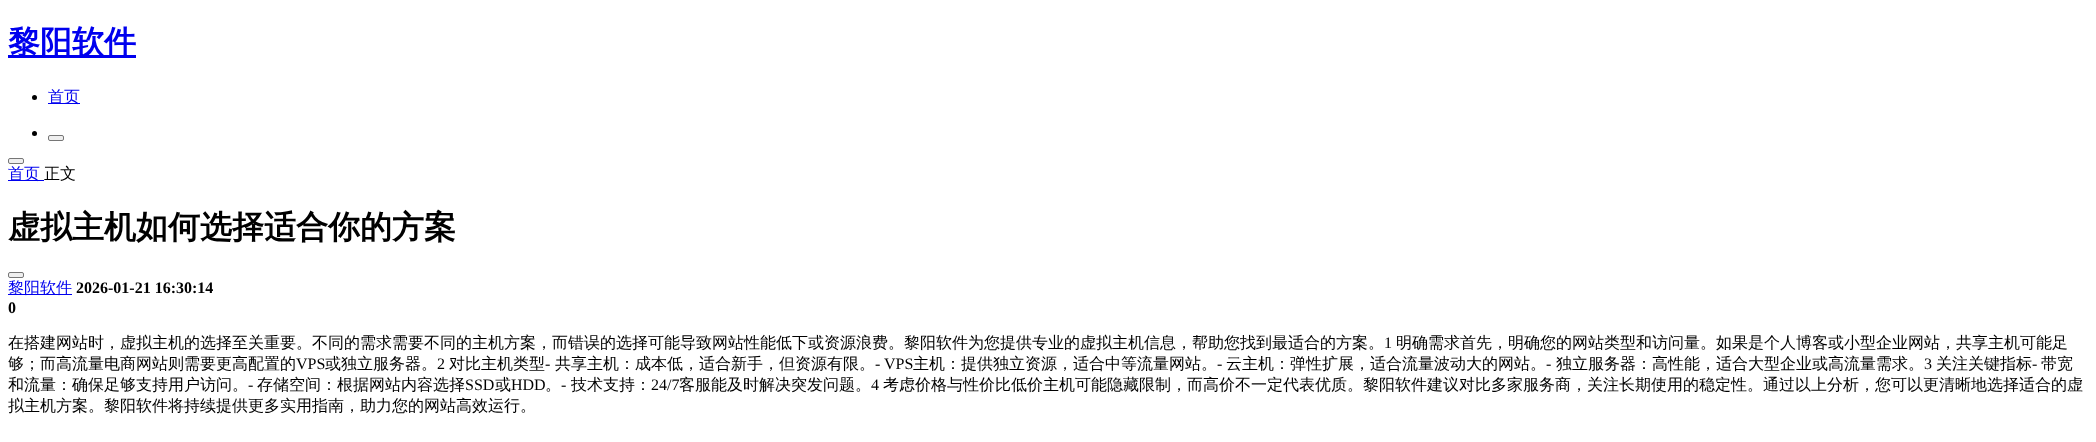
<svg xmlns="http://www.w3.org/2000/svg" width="2096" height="442">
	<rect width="100%" height="100%" fill="#FFFFFF" />
	<rect x="8" y="55" width="128" height="3" fill="#0000EE" />
	<text x="8" y="53" font-family="WenQuanYi Zen Hei" font-size="32" font-weight="700" fill="#0000EE">黎阳软件</text>
	<circle cx="34.5" cy="97.5" r="2.5" fill="#000000" />
	<rect x="48" y="103" width="32" height="1" fill="#0000EE" />
	<text x="48" y="102" font-family="WenQuanYi Zen Hei" font-size="16" font-weight="500" fill="#0000EE">首页</text>
	<circle cx="34.5" cy="133.5" r="2.5" fill="#000000" />
	<rect x="48.5" y="135.5" width="15" height="5" rx="1.5" fill="#EFEFEF" stroke="#767676" />
	<rect x="8.5" y="158.5" width="15" height="5" rx="1.5" fill="#EFEFEF" stroke="#767676" />
	<rect x="8" y="180" width="36" height="1" fill="#0000EE" />
	<text x="8" y="179" font-family="WenQuanYi Zen Hei" font-size="16" font-weight="500" fill="#0000EE">首页</text>
	<text x="44" y="179" font-family="WenQuanYi Zen Hei" font-size="16" font-weight="500" fill="#000000">正文</text>
	<text x="8" y="238" font-family="WenQuanYi Zen Hei" font-size="32" font-weight="700" fill="#000000">虚拟主机如何选择适合你的方案</text>
	<rect x="8.5" y="272.5" width="15" height="5" rx="1.5" fill="#EFEFEF" stroke="#767676" />
	<rect x="8" y="294" width="64" height="1" fill="#0000EE" />
	<text x="8" y="293" font-family="WenQuanYi Zen Hei" font-size="16" font-weight="500" fill="#0000EE">黎阳软件</text>
	<g font-family="Liberation Serif" font-size="16" font-weight="700" fill="#000000">
		<text x="76" y="293">2026-01-21 16:30:14</text>
		<text x="8" y="313">0</text>
	</g>
	<text x="8" y="348" font-family="WenQuanYi Zen Hei" font-size="16" font-weight="500" fill="#000000">在搭建网站时，虚拟主机的选择至关重要。不同的需求需要不同的主机方案，而错误的选择可能导致网站性能低下或资源浪费。黎阳软件为您提供专业的虚拟主机信息，帮助您找到最适合的方案。</text>
	<text x="1384" y="348" font-family="Liberation Serif" font-size="16" fill="#000000">1</text>
	<g font-family="WenQuanYi Zen Hei" font-size="16" font-weight="500" fill="#000000">
		<text x="1396" y="348">明确需求首先，明确您的网站类型和访问量。如果是个人博客或小型企业网站，共享主机可能足</text>
		<text x="8" y="369">够；而高流量电商网站则需要更高配置的</text>
	</g>
	<text x="296" y="369" font-family="Liberation Serif" font-size="16" fill="#000000">VPS</text>
	<text x="325" y="369" font-family="WenQuanYi Zen Hei" font-size="16" font-weight="500" fill="#000000">或独立服务器。</text>
	<text x="437" y="369" font-family="Liberation Serif" font-size="16" fill="#000000">2</text>
	<text x="449" y="369" font-family="WenQuanYi Zen Hei" font-size="16" font-weight="500" fill="#000000">对比主机类型</text>
	<text x="545" y="369" font-family="Liberation Serif" font-size="16" fill="#000000">-</text>
	<text x="555" y="369" font-family="WenQuanYi Zen Hei" font-size="16" font-weight="500" fill="#000000">共享主机：成本低，适合新手，但资源有限。</text>
	<text x="875" y="369" font-family="Liberation Serif" font-size="16" fill="#000000">- VPS</text>
	<text x="913" y="369" font-family="WenQuanYi Zen Hei" font-size="16" font-weight="500" fill="#000000">主机：提供独立资源，适合中等流量网站。</text>
	<text x="1217" y="369" font-family="Liberation Serif" font-size="16" fill="#000000">-</text>
	<text x="1226" y="369" font-family="WenQuanYi Zen Hei" font-size="16" font-weight="500" fill="#000000">云主机：弹性扩展，适合流量波动大的网站。</text>
	<text x="1546" y="369" font-family="Liberation Serif" font-size="16" fill="#000000">-</text>
	<text x="1556" y="369" font-family="WenQuanYi Zen Hei" font-size="16" font-weight="500" fill="#000000">独立服务器：高性能，适合大型企业或高流量需求。</text>
	<text x="1924" y="369" font-family="Liberation Serif" font-size="16" fill="#000000">3</text>
	<text x="1936" y="369" font-family="WenQuanYi Zen Hei" font-size="16" font-weight="500" fill="#000000">关注关键指标</text>
	<text x="2032" y="369" font-family="Liberation Serif" font-size="16" fill="#000000">-</text>
	<g font-family="WenQuanYi Zen Hei" font-size="16" font-weight="500" fill="#000000">
		<text x="2041" y="369">带宽</text>
		<text x="8" y="390">和流量：确保足够支持用户访问。</text>
	</g>
	<text x="248" y="390" font-family="Liberation Serif" font-size="16" fill="#000000">-</text>
	<text x="257" y="390" font-family="WenQuanYi Zen Hei" font-size="16" font-weight="500" fill="#000000">存储空间：根据网站内容选择</text>
	<text x="465" y="390" font-family="Liberation Serif" font-size="16" fill="#000000">SSD</text>
	<text x="495" y="390" font-family="WenQuanYi Zen Hei" font-size="16" font-weight="500" fill="#000000">或</text>
	<g font-family="Liberation Serif" font-size="16" fill="#000000">
		<text x="511" y="390">HDD</text>
		<text x="561" y="390">-</text>
	</g>
	<text x="571" y="390" font-family="WenQuanYi Zen Hei" font-size="16" font-weight="500" fill="#000000">技术支持：</text>
	<text x="651" y="390" font-family="Liberation Serif" font-size="16" fill="#000000">24/7</text>
	<text x="679" y="390" font-family="WenQuanYi Zen Hei" font-size="16" font-weight="500" fill="#000000">客服能及时解决突发问题。</text>
	<text x="871" y="390" font-family="Liberation Serif" font-size="16" fill="#000000">4</text>
	<g font-family="WenQuanYi Zen Hei" font-size="16" font-weight="500" fill="#000000">
		<text x="883" y="390">考虑价格与性价比低价主机可能隐藏限制，而高价不一定代表优质。黎阳软件建议对比多家服务商，关注长期使用的稳定性。通过以上分析，您可以更清晰地选择适合的虚</text>
		<text x="545" y="390">。</text>
		<text x="8" y="411">拟主机方案。黎阳软件将持续提供更多实用指南，助力您的网站高效运行。</text>
	</g>
</svg>
